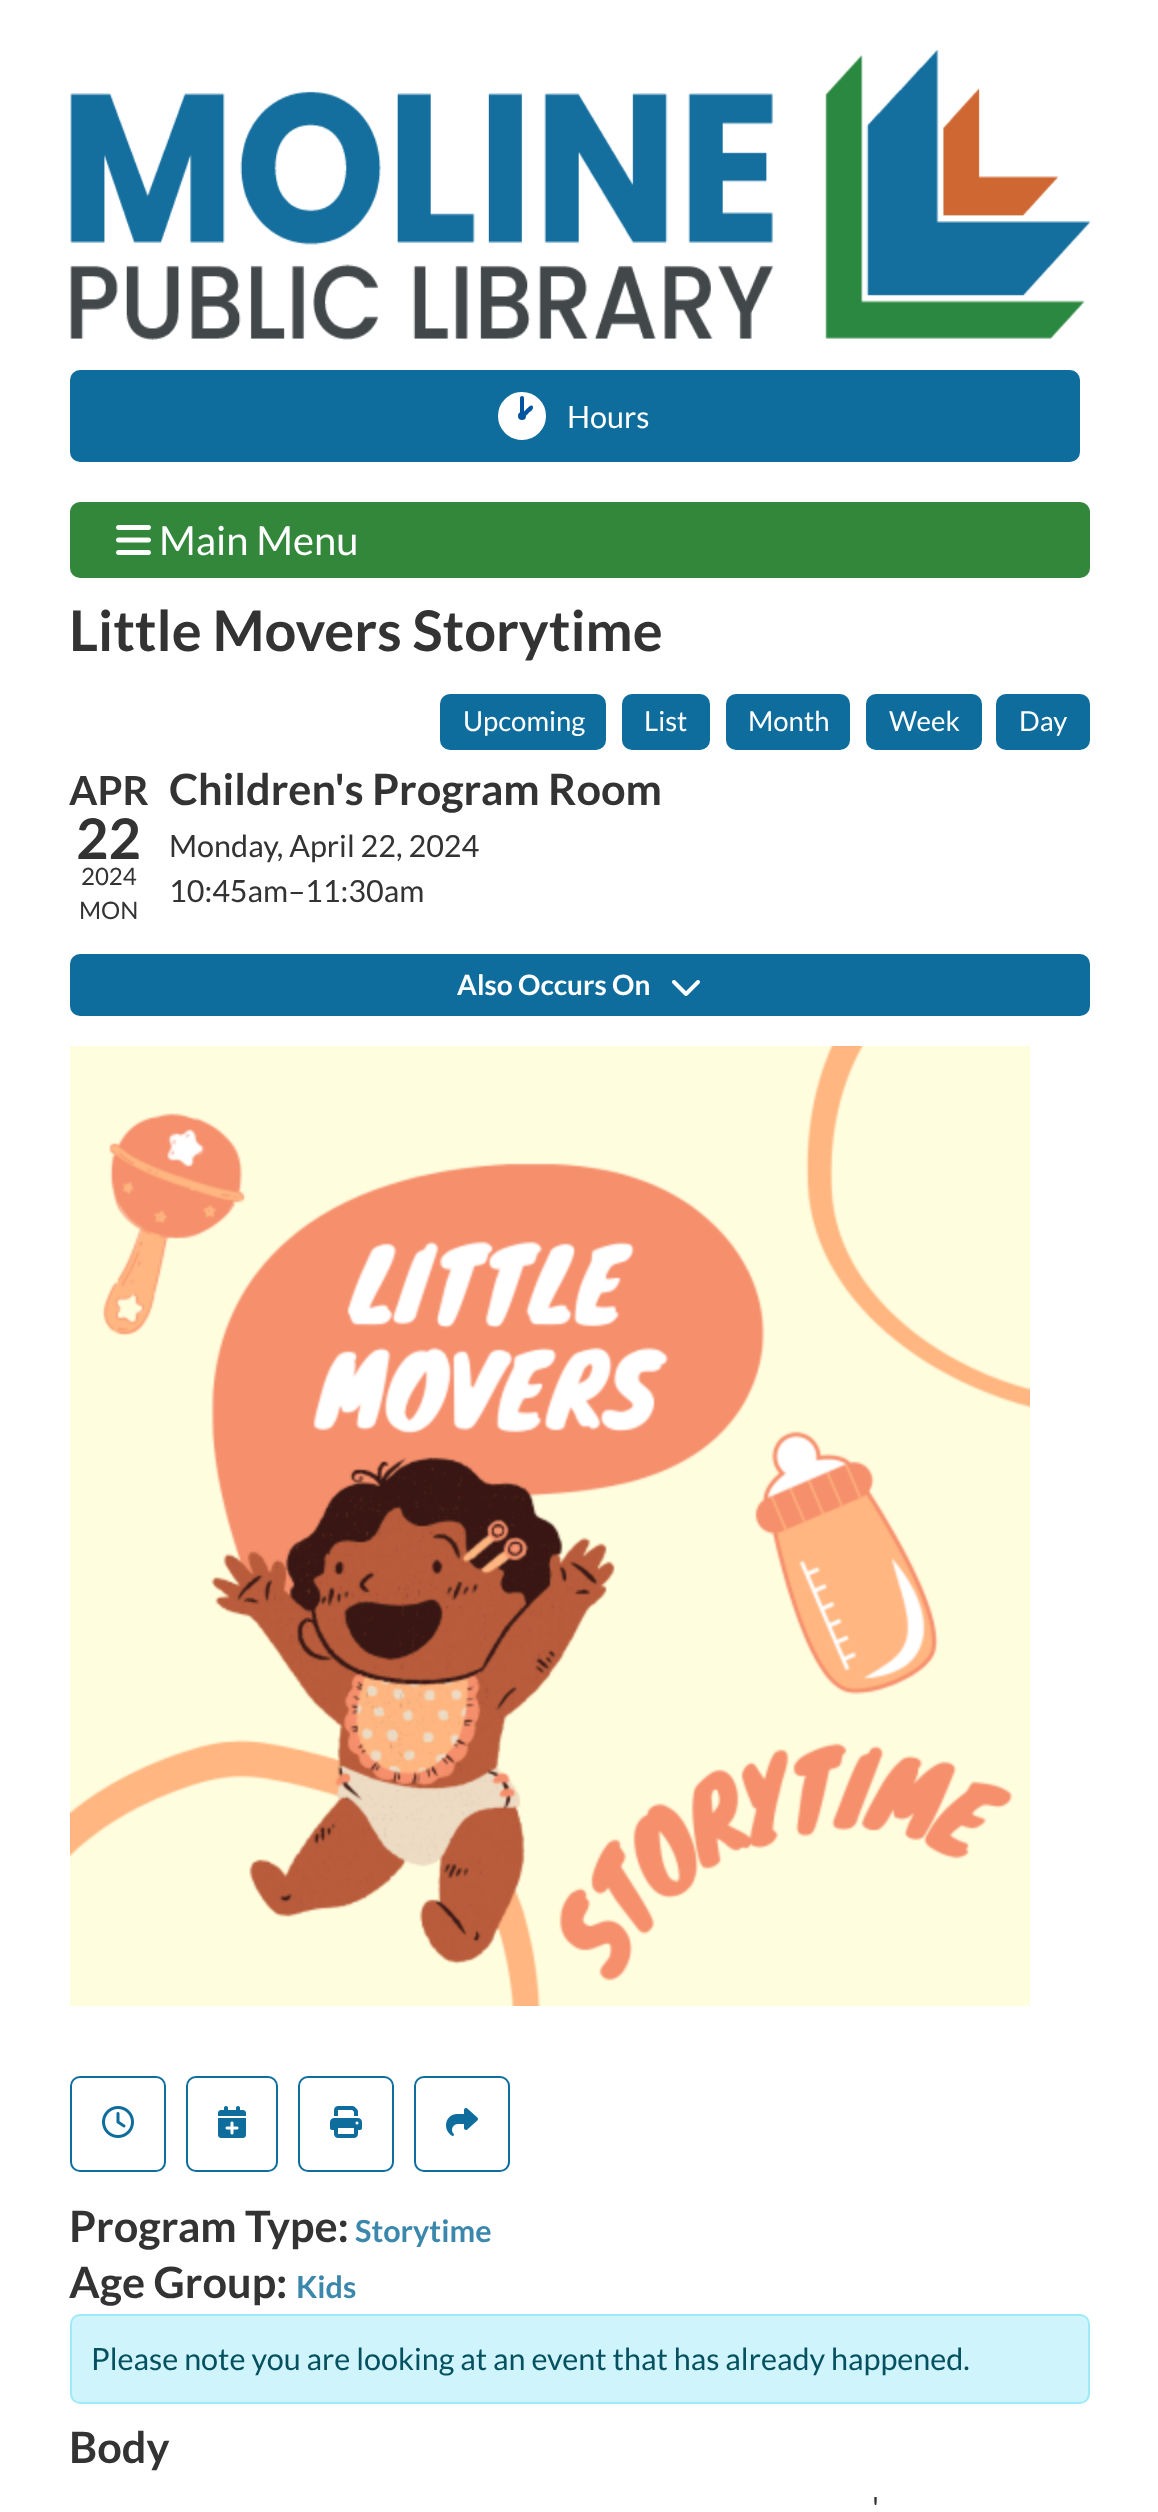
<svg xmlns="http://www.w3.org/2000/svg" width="1158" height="2512">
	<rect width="100%" height="100%" fill="#FFFFFF" />
	<image x="70" y="50" width="1020" height="290" href="assets/img1.png" />
	<rect x="71" y="371" width="1008" height="90" rx="9" fill="#0E6D9C" stroke="#0E6D9C" stroke-width="2" />
	<circle cx="522" cy="416" r="14" fill="#00549F" stroke="#FFFFFF" stroke-width="20" />
	<rect x="520" y="396" width="4" height="20" rx="2" fill="#00549F" />
	<path d="M532.5 406C534.5 408.5 530.5 411.5 529 412.5C528 413.5 525 418 522.5 416C520.5 414 525 411 526 409.5C527.5 408.5 530.5 404 532.5 406Z" fill="#00549F" />
	<text x="567" y="428" font-family="Lato" font-size="30.55" fill="#FFFFFF">Hours</text>
	<rect x="70" y="502" width="1020" height="76" rx="10" fill="#33873B" />
	<image x="116" y="525" width="35" height="30" href="assets/img2.png" />
	<text x="159" y="555" font-family="Lato" font-size="40" fill="#FFFFFF">Main Menu</text>
	<text x="69" y="651" font-family="Lato" font-size="56" font-weight="700" fill="#333333">Little Movers Storytime</text>
	<rect x="441" y="695" width="164" height="54" rx="9" fill="#0E6D9C" stroke="#0E6D9C" stroke-width="2" />
	<text x="463" y="731" font-family="Lato" font-size="27.5" fill="#FFFFFF">Upcoming</text>
	<rect x="623" y="695" width="86" height="54" rx="9" fill="#0E6D9C" stroke="#0E6D9C" stroke-width="2" />
	<text x="644" y="731" font-family="Lato" font-size="27.5" fill="#FFFFFF">List</text>
	<rect x="727" y="695" width="122" height="54" rx="9" fill="#0E6D9C" stroke="#0E6D9C" stroke-width="2" />
	<text x="748" y="731" font-family="Lato" font-size="27.5" fill="#FFFFFF">Month</text>
	<rect x="867" y="695" width="114" height="54" rx="9" fill="#0E6D9C" stroke="#0E6D9C" stroke-width="2" />
	<text x="889" y="731" font-family="Lato" font-size="27.5" fill="#FFFFFF">Week</text>
	<rect x="997" y="695" width="92" height="54" rx="9" fill="#0E6D9C" stroke="#0E6D9C" stroke-width="2" />
	<text x="1019" y="731" font-family="Lato" font-size="27.5" fill="#FFFFFF">Day</text>
	<text x="69" y="805" font-family="Lato" font-size="40" font-weight="700" fill="#333333">APR</text>
	<text x="76" y="859" font-family="Lato" font-size="56" font-weight="700" fill="#333333">22</text>
	<g font-family="Lato" font-size="24" fill="#333333">
		<text x="81" y="885">2024</text>
		<text x="79" y="919">MON</text>
	</g>
	<text x="169" y="805" font-family="Lato" font-size="43.25" font-weight="700" fill="#333333">Children's Program Room</text>
	<g font-family="Lato" font-size="30.55" fill="#333333">
		<text x="169" y="857">Monday, April 22, 2024</text>
		<text x="169" y="902">10:45am–11:30am</text>
	</g>
	<rect x="71" y="955" width="1018" height="60" rx="9" fill="#0E6D9C" stroke="#0E6D9C" stroke-width="2" />
	<text x="457" y="995" font-family="Lato" font-size="28" font-weight="700" fill="#FFFFFF">Also Occurs On</text>
	<image x="672" y="980" width="28" height="16" href="assets/img3.png" />
	<image x="70" y="1046" width="960" height="960" href="assets/img4.png" />
	<rect x="71" y="2077" width="94" height="94" rx="9" fill="none" stroke="#0E6D9C" stroke-width="2" />
	<image x="102" y="2106" width="32" height="32" href="assets/img5.png" />
	<rect x="187" y="2077" width="90" height="94" rx="9" fill="none" stroke="#0E6D9C" stroke-width="2" />
	<image x="218" y="2106" width="28" height="32" href="assets/img6.png" />
	<rect x="299" y="2077" width="94" height="94" rx="9" fill="none" stroke="#0E6D9C" stroke-width="2" />
	<image x="330" y="2106" width="32" height="32" href="assets/img7.png" />
	<rect x="415" y="2077" width="94" height="94" rx="9" fill="none" stroke="#0E6D9C" stroke-width="2" />
	<image x="446" y="2108" width="32" height="28" href="assets/img8.png" />
	<text x="69" y="2242" font-family="Lato" font-size="43.25" font-weight="700" fill="#333333">Program Type:</text>
	<text x="355" y="2242" font-family="Lato" font-size="30.55" font-weight="700" fill="#3C88AD">Storytime</text>
	<text x="69" y="2298" font-family="Lato" font-size="43.25" font-weight="700" fill="#333333">Age Group:</text>
	<text x="296" y="2298" font-family="Lato" font-size="30.55" font-weight="700" fill="#3C88AD">Kids</text>
	<rect x="71" y="2315" width="1018" height="88" rx="9" fill="#CFF4FC" stroke="#9EEAF9" stroke-width="2" />
	<text x="91" y="2370" font-family="Lato" font-size="30.55" fill="#055160">Please note you are looking at an event that has already happened.</text>
	<text x="69" y="2463" font-family="Lato" font-size="43.25" font-weight="700" fill="#333333">Body</text>
	<text x="872" y="2519" font-family="Lato" font-size="30.55" fill="#333333">'</text>
</svg>
